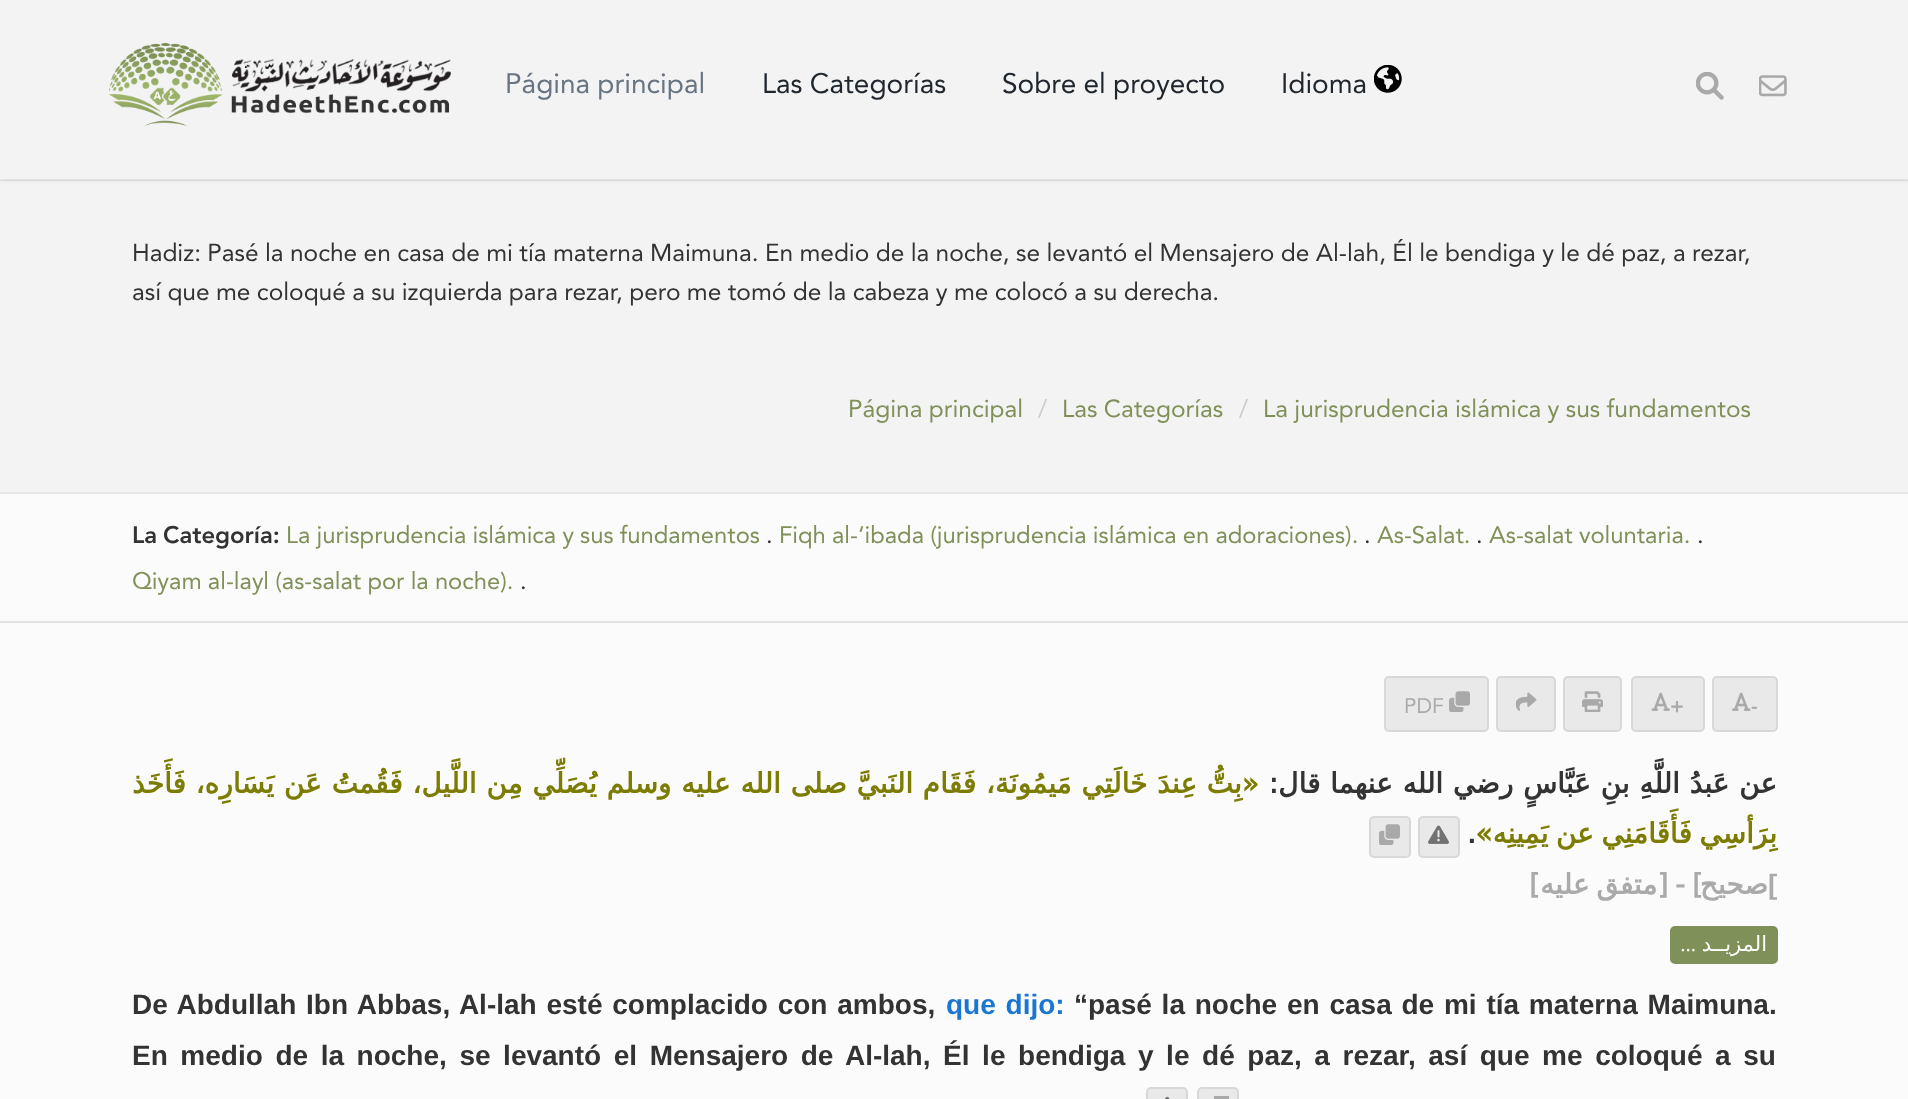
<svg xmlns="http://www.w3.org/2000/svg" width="1908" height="1099">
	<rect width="100%" height="100%" fill="#FFFFFF" />
	<rect x="0" y="180" width="1908" height="312" fill="#F3F3F3" />
	<rect x="0" y="0" width="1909" height="180" fill="#000000" fill-opacity="0.1" filter="blur(2px)" />
	<rect x="0" y="179" width="1908" height="2" fill="#000000" fill-opacity="0.05" />
	<rect x="0" y="0" width="1908" height="179" fill="#F3F3F3" />
	<image x="109" y="43" width="342" height="84" href="assets/img1.png" />
	<text x="505" y="93" font-family="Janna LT" font-size="28" fill="#687482">Página principal</text>
	<g font-family="Janna LT" font-size="28" fill="#1F262D">
		<text x="762" y="93">Las Categorías</text>
		<text x="1002" y="93">Sobre el proyecto</text>
		<text x="1281" y="93">Idioma</text>
	</g>
	<image x="1374" y="65" width="28" height="28" href="assets/img2.png" />
	<image x="1696" y="72" width="28" height="28" href="assets/img3.png" />
	<image x="1759" y="75" width="28" height="22" href="assets/img4.png" />
	<rect x="0" y="492" width="1908" height="2" fill="#E7E7E7" />
	<g font-family="Janna LT" font-size="24.5" fill="#333333">
		<text x="132" y="261">Hadiz: Pasé la noche en casa de mi tía materna Maimuna. En medio de la noche, se levantó el Mensajero de Al-lah, Él le bendiga y le dé paz, a rezar,</text>
		<text x="132" y="300">así que me coloqué a su izquierda para rezar, pero me tomó de la cabeza y me colocó a su derecha.</text>
	</g>
	<text x="848" y="417" font-family="Janna LT" font-size="24.5" fill="#7F9059">Página principal</text>
	<text x="1038" y="417" font-family="Janna LT" font-size="24.5" fill="#CCCCCC">/</text>
	<text x="1062" y="417" font-family="Janna LT" font-size="24.5" fill="#7F9059">Las Categorías</text>
	<text x="1239" y="417" font-family="Janna LT" font-size="24.5" fill="#CCCCCC">/</text>
	<text x="1263" y="417" font-family="Janna LT" font-size="24.5" fill="#7F9059">La jurisprudencia islámica y sus fundamentos</text>
	<rect x="0" y="494" width="1908" height="127" fill="#FBFBFB" />
	<rect x="0" y="621" width="1908" height="2" fill="#E2E2E2" />
	<text x="132" y="543" font-family="Janna LT" font-size="23.8" font-weight="700" fill="#333333">La Categoría:</text>
	<text x="286" y="543" font-family="Janna LT" font-size="23.8" fill="#7F9059">La jurisprudencia islámica y sus fundamentos</text>
	<text x="766" y="543" font-family="Janna LT" font-size="23.8" fill="#333333">.</text>
	<text x="779" y="543" font-family="Janna LT" font-size="23.8" fill="#7F9059">Fiqh al-‘ibada (jurisprudencia islámica en adoraciones).</text>
	<text x="1364" y="543" font-family="Janna LT" font-size="23.8" fill="#333333">.</text>
	<text x="1377" y="543" font-family="Janna LT" font-size="23.8" fill="#7F9059">As-Salat.</text>
	<text x="1476" y="543" font-family="Janna LT" font-size="23.8" fill="#333333">.</text>
	<text x="1489" y="543" font-family="Janna LT" font-size="23.8" fill="#7F9059">As-salat voluntaria.</text>
	<text x="1697" y="543" font-family="Janna LT" font-size="23.8" fill="#333333">.</text>
	<text x="132" y="589" font-family="Janna LT" font-size="23.8" fill="#7F9059">Qiyam al-layl (as-salat por la noche).</text>
	<text x="520" y="589" font-family="Janna LT" font-size="23.8" fill="#333333">.</text>
	<rect x="0" y="623" width="1908" height="476" fill="#FBFBFB" />
	<rect x="1384" y="676" width="105" height="56" rx="5" fill="#E9E9E9" />
	<rect x="1385" y="677" width="103" height="54" rx="4" fill="none" stroke="#000000" stroke-opacity="0.07" stroke-width="2" />
	<text x="1404" y="713" font-family="Janna LT" font-size="21" fill="#AAAAAA">PDF</text>
	<image x="1449" y="691" width="21" height="21" href="assets/img5.png" />
	<rect x="1496" y="676" width="60" height="56" rx="5" fill="#E9E9E9" />
	<rect x="1497" y="677" width="58" height="54" rx="4" fill="none" stroke="#000000" stroke-opacity="0.07" stroke-width="2" />
	<image x="1516" y="692" width="21" height="19" href="assets/img6.png" />
	<rect x="1563" y="676" width="59" height="56" rx="5" fill="#E9E9E9" />
	<rect x="1564" y="677" width="57" height="54" rx="4" fill="none" stroke="#000000" stroke-opacity="0.07" stroke-width="2" />
	<image x="1582" y="691" width="21" height="21" href="assets/img7.png" />
	<rect x="1631" y="676" width="74" height="56" rx="5" fill="#E9E9E9" />
	<rect x="1632" y="677" width="72" height="54" rx="4" fill="none" stroke="#000000" stroke-opacity="0.07" stroke-width="2" />
	<image x="1651" y="692" width="19" height="19" href="assets/img8.png" />
	<text x="1670" y="713" font-family="Janna LT" font-size="21" font-weight="700" fill="#AAAAAA">+</text>
	<rect x="1712" y="676" width="66" height="56" rx="5" fill="#E9E9E9" />
	<rect x="1713" y="677" width="64" height="54" rx="4" fill="none" stroke="#000000" stroke-opacity="0.07" stroke-width="2" />
	<image x="1732" y="692" width="19" height="19" href="assets/img9.png" />
	<text x="1751" y="713" font-family="Janna LT" font-size="21" font-weight="700" fill="#AAAAAA">-</text>
	<text x="1259" y="793" word-spacing="0.75" font-family="DejaVu Sans" font-size="28" font-weight="700" direction="rtl" fill="#7C7C02">«بِتُّ عِندَ خَالَتِي مَيمُونَة، فَقَام النَبيَّ صلى الله عليه وسلم يُصَلِّي مِن اللَّيل، فَقُمتُ عَن يَسَارِه، فَأَخَذ</text>
	<text x="1777" y="793" word-spacing="0.75" font-family="DejaVu Sans" font-size="28" font-weight="700" direction="rtl" fill="#333333">عن عَبدُ اللَّهِ بنِ عَبَّاسٍ رضي الله عنهما قال:</text>
	<rect x="1369" y="816" width="42" height="42" rx="5" fill="#E9E9E9" />
	<rect x="1370" y="817" width="40" height="40" rx="4" fill="none" stroke="#000000" stroke-opacity="0.07" stroke-width="2" />
	<image x="1379" y="824" width="21" height="21" href="assets/img5.png" />
	<rect x="1418" y="816" width="42" height="42" rx="5" fill="#E9E9E9" />
	<rect x="1419" y="817" width="40" height="40" rx="4" fill="none" stroke="#000000" stroke-opacity="0.07" stroke-width="2" />
	<image x="1428" y="825" width="21" height="19" href="assets/img10.png" />
	<text x="1468" y="843" font-family="Liberation Sans" font-size="28" font-weight="700" fill="#333333">.</text>
	<text x="1777" y="843" word-spacing="-1.5" font-family="DejaVu Sans" font-size="28" font-weight="700" direction="rtl" fill="#7C7C02">بِرَأسِي فَأَقَامَنِي عن يَمِينِه»</text>
	<g font-family="DejaVu Sans" font-size="28" font-weight="700" direction="rtl" fill="#AAAAAA">
		<text x="1768" y="894">صحيح</text>
		<text x="1703" y="894" word-spacing="-2">] - [متفق عليه]</text>
	</g>
	<text x="1768" y="894" font-family="Liberation Sans" font-size="28" font-weight="700" fill="#AAAAAA">[</text>
	<rect x="1671" y="927" width="106" height="36" rx="4" fill="#7F9059" stroke="#7F9059" stroke-width="2" />
	<text x="1696" y="951" font-family="Liberation Serif" font-size="21" direction="rtl" fill="#FFFFFF">...</text>
	<text x="1767" y="951" font-family="DejaVu Sans" font-size="21" direction="rtl" fill="#FFFFFF">المزيــد</text>
	<text x="132" y="1014" word-spacing="2" font-family="Liberation Sans" font-size="28" font-weight="700" fill="#333333">De Abdullah Ibn Abbas, Al-lah esté complacido con ambos,</text>
	<text x="946" y="1014" word-spacing="2" font-family="Liberation Sans" font-size="28" font-weight="700" fill="#1976D2">que dijo:</text>
	<g font-family="Liberation Sans" font-size="28" font-weight="700" fill="#333333">
		<text x="1074" y="1014" word-spacing="2">“pasé la noche en casa de mi tía materna Maimuna.</text>
		<text x="132" y="1065" word-spacing="4.8">En medio de la noche, se levantó el Mensajero de Al-lah, Él le bendiga y le dé paz, a rezar, así que me coloqué a su</text>
	</g>
	<rect x="1146" y="1087" width="42" height="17" rx="5" fill="#E9E9E9" />
	<rect x="1147" y="1088" width="40" height="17" rx="4" fill="none" stroke="#000000" stroke-opacity="0.07" stroke-width="2" />
	<image x="1165" y="1096" width="5" height="3" href="assets/img11.png" />
	<rect x="1197" y="1087" width="42" height="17" rx="5" fill="#E9E9E9" />
	<rect x="1198" y="1088" width="40" height="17" rx="4" fill="none" stroke="#000000" stroke-opacity="0.07" stroke-width="2" />
	<rect x="1214" y="1096" width="15" height="3" fill="#A9A9A9" />
</svg>
